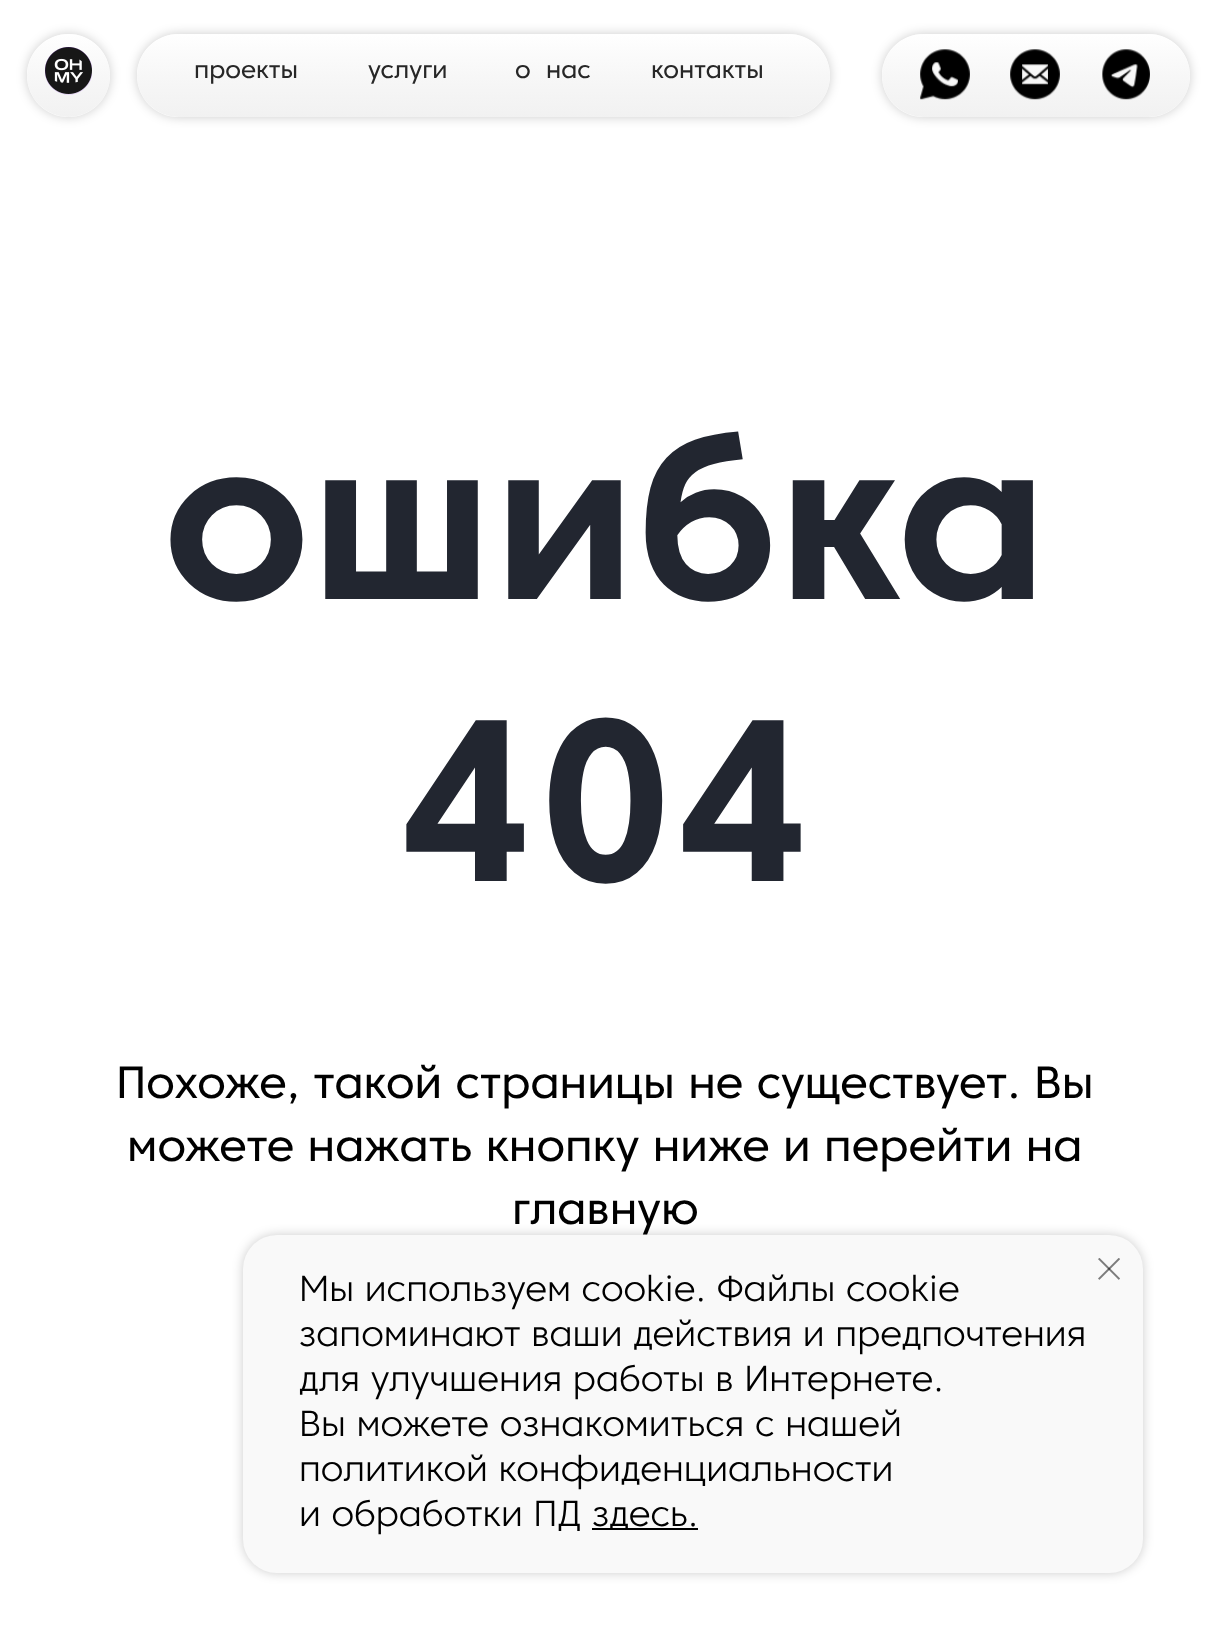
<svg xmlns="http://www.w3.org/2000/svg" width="1209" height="1639">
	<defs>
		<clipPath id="clip1"><path d="M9 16H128V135H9ZM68.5 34C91.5 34 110 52.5 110 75.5C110 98.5 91.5 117 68.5 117C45.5 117 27 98.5 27 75.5C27 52.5 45.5 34 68.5 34Z" clip-rule="evenodd" /></clipPath>
		<linearGradient id="g1" gradientUnits="userSpaceOnUse" x1="69" y1="117" x2="69" y2="34"><stop offset="0" stop-color="#EEEEEE" stop-opacity="0.8" /><stop offset="1" stop-color="#FFFFFF" /></linearGradient>
		<clipPath id="clip2"><path d="M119 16H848V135H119ZM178.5 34H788.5C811.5 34 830 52.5 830 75.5C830 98.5 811.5 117 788.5 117H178.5C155.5 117 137 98.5 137 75.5C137 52.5 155.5 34 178.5 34Z" clip-rule="evenodd" /></clipPath>
		<linearGradient id="g2" gradientUnits="userSpaceOnUse" x1="484" y1="117" x2="484" y2="34"><stop offset="0" stop-color="#EEEEEE" stop-opacity="0.8" /><stop offset="1" stop-color="#FFFFFF" /></linearGradient>
		<clipPath id="clip3"><path d="M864 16H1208V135H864ZM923.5 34H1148.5C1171.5 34 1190 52.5 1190 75.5C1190 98.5 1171.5 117 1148.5 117H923.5C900.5 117 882 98.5 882 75.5C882 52.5 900.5 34 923.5 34Z" clip-rule="evenodd" /></clipPath>
		<linearGradient id="g3" gradientUnits="userSpaceOnUse" x1="1036" y1="117" x2="1036" y2="34"><stop offset="0" stop-color="#EEEEEE" stop-opacity="0.8" /><stop offset="1" stop-color="#FFFFFF" /></linearGradient>
	</defs>
	<rect width="100%" height="100%" fill="#FFFFFF" />
	<g clip-path="url(#clip1)">
		<rect x="27" y="34" width="83" height="83" rx="41.5" fill="#000000" fill-opacity="0.2" filter="blur(5.5px)" />
	</g>
	<circle cx="68.5" cy="75.5" r="41.5" fill="url(#g1)" />
	<g clip-path="url(#clip2)">
		<rect x="137" y="34" width="693" height="83" rx="41.5" fill="#000000" fill-opacity="0.2" filter="blur(5.5px)" />
	</g>
	<rect x="137" y="34" width="693" height="83" rx="41.5" fill="url(#g2)" />
	<g clip-path="url(#clip3)">
		<rect x="882" y="34" width="308" height="83" rx="41.5" fill="#000000" fill-opacity="0.2" filter="blur(5.5px)" />
	</g>
	<rect x="882" y="34" width="308" height="83" rx="41.5" fill="url(#g3)" />
	<image x="45" y="47" width="47" height="48" href="assets/img1.png" />
	<g font-family="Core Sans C" font-size="24.75" fill="#272727">
		<text x="194" y="78">проекты</text>
		<text x="368" y="78">услуги</text>
		<text x="515" y="78" word-spacing="8">о нас</text>
		<text x="651" y="78">контакты</text>
	</g>
	<image x="920" y="49" width="50" height="51" href="assets/img2.png" />
	<image x="1010" y="49" width="50" height="51" href="assets/img3.png" />
	<image x="1102" y="49" width="48" height="51" href="assets/img4.png" />
	<rect x="243" y="1235" width="900" height="338" rx="34" fill="#000000" fill-opacity="0.2" filter="blur(5.5px)" />
	<rect x="243" y="1235" width="900" height="338" rx="34" fill="#F9F9F9" />
	<image x="1098" y="1258" width="22" height="22" href="assets/img5.png" />
	<g font-family="Core Sans C" font-size="36" font-weight="300" fill="#000000">
		<text x="299" y="1301">Мы используем cookie. Файлы cookie</text>
		<text x="299" y="1346">запоминают ваши действия и предпочтения</text>
		<text x="299" y="1391">для улучшения работы в Интернете.</text>
		<text x="299" y="1436">Вы можете ознакомиться с нашей</text>
		<text x="299" y="1481">политикой конфиденциальности</text>
		<text x="299" y="1526">и обработки ПД</text>
	</g>
	<rect x="592" y="1528" width="106" height="2" fill="#000000" />
	<text x="592" y="1526" font-family="Core Sans C" font-size="36" font-weight="300" fill="#000000">здесь.</text>
	<g font-family="Core Sans C" font-size="229.5" font-weight="700" fill="#222630">
		<text x="163" y="599">ошибка</text>
		<text x="398" y="881">404</text>
	</g>
	<g font-family="Core Sans C" font-size="45" fill="#000000">
		<text x="116" y="1098">Похоже, такой страницы не существует. Вы</text>
		<text x="127" y="1161">можете нажать кнопку ниже и перейти на</text>
		<text x="512" y="1224">главную</text>
	</g>
</svg>
